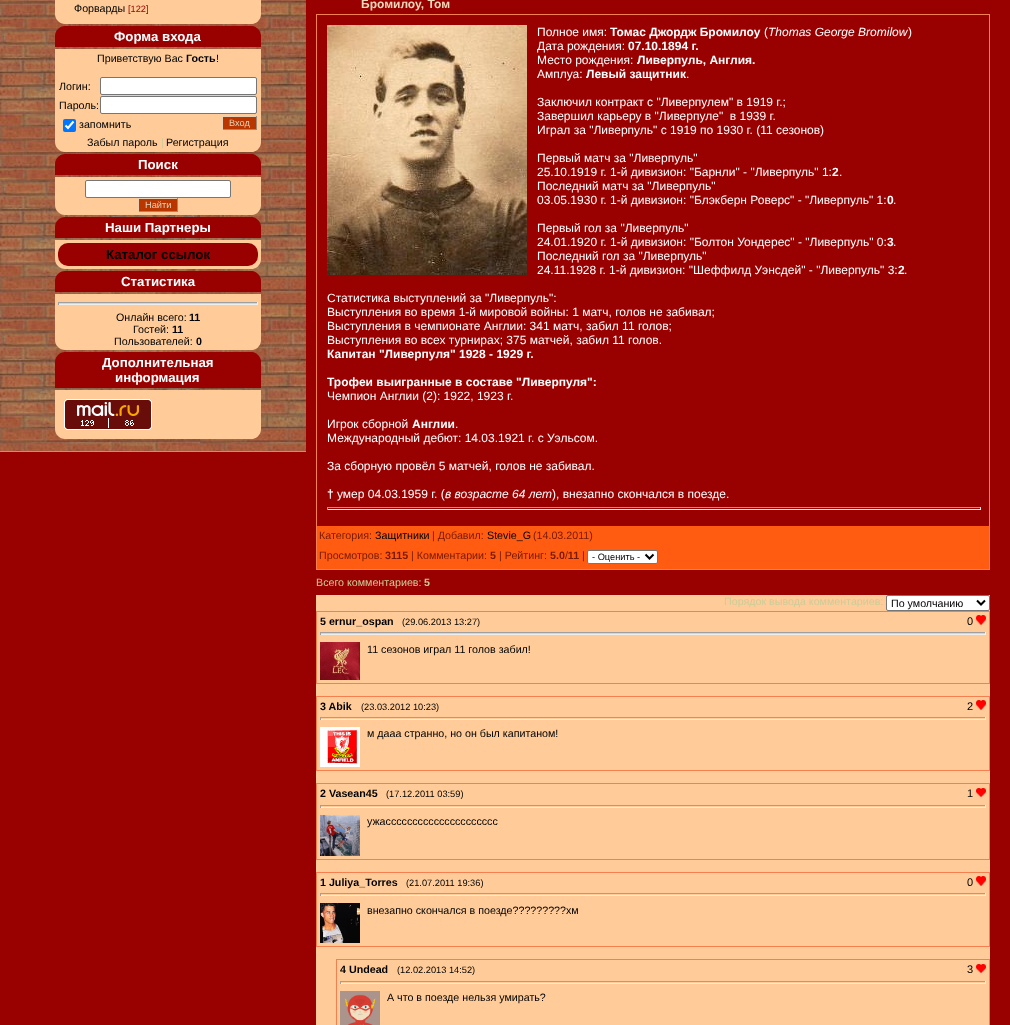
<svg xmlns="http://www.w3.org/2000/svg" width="1010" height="1025">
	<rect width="100%" height="100%" fill="#990000" />
	<image x="0" y="0" width="306" height="451" href="assets/img1.png" />
	<rect x="0" y="451" width="306" height="1" fill="#F48050" />
	<path d="M55-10H261V14C261 19.5 256.5 24 251 24H65C59.5 24 55 19.5 55 14Z" fill="#FFCC99" />
	<text x="74" y="12" font-family="Liberation Sans" font-size="10.7" fill="#000000">Форварды</text>
	<text x="128" y="12" font-family="Liberation Sans" font-size="9.25" fill="#990000">[122]</text>
	<path d="M65 26H251C256.5 26 261 30.5 261 36V47H55V36C55 30.5 59.5 26 65 26Z" fill="#990000" />
	<text x="114" y="41" font-family="Liberation Sans" font-size="13.25" font-weight="700" fill="#FFFFFF">Форма входа</text>
	<path d="M55 49H261V142C261 147.5 256.5 152 251 152H65C59.5 152 55 147.5 55 142Z" fill="#FFCC99" />
	<text x="97" y="62" font-family="Liberation Sans" font-size="10.7" fill="#000000">Приветствую Вас</text>
	<text x="186" y="62" font-family="Liberation Sans" font-size="10.7" font-weight="700" fill="#000000">Гость</text>
	<g font-family="Liberation Sans" font-size="10.7" fill="#000000">
		<text x="216" y="62">!</text>
		<text x="59" y="90">Логин:</text>
	</g>
	<rect x="100.5" y="77.5" width="156" height="17" rx="1.5" fill="#FFFFFF" stroke="#767676" />
	<text x="59" y="109" font-family="Liberation Sans" font-size="10.7" fill="#000000">Пароль:</text>
	<rect x="100.5" y="96.5" width="156" height="17" rx="1.5" fill="#FFFFFF" stroke="#767676" />
	<rect x="63" y="119" width="13" height="13" rx="2" fill="#0075FF" />
	<path d="M65.5 125.5L68 128L73.5 121.5" fill="none" stroke="#FFFFFF" stroke-width="2.1" />
	<text x="79" y="128" font-family="Liberation Sans" font-size="10.7" fill="#000000">запомнить</text>
	<rect x="223" y="117" width="33" height="12" fill="#B93601" />
	<rect x="222" y="116" width="35" height="1" fill="#EBD1B4" />
	<rect x="256" y="116" width="1" height="14" fill="#9D8B78" />
	<rect x="222" y="129" width="35" height="1" fill="#9D8B78" />
	<rect x="222" y="116" width="1" height="14" fill="#EBD1B4" />
	<text x="229" y="126" font-family="Liberation Sans" font-size="9.25" fill="#EBD1B4">Вход</text>
	<text x="87" y="146" font-family="Liberation Sans" font-size="10.7" fill="#000000">Забыл пароль</text>
	<text x="161" y="146" font-family="Liberation Sans" font-size="10.7" fill="#CCCC99">|</text>
	<text x="166" y="146" font-family="Liberation Sans" font-size="10.7" fill="#000000">Регистрация</text>
	<path d="M65 154H251C256.5 154 261 158.5 261 164V175H55V164C55 158.5 59.5 154 65 154Z" fill="#990000" />
	<text x="138" y="169" font-family="Liberation Sans" font-size="13.25" font-weight="700" fill="#FFFFFF">Поиск</text>
	<path d="M55 177H261V205C261 210.5 256.5 215 251 215H65C59.5 215 55 210.5 55 205Z" fill="#FFCC99" />
	<rect x="85.5" y="180.5" width="145" height="17" rx="1.5" fill="#FFFFFF" stroke="#767676" />
	<rect x="139" y="199" width="38" height="12" fill="#B93601" />
	<rect x="138" y="198" width="40" height="1" fill="#EBD1B4" />
	<rect x="177" y="198" width="1" height="14" fill="#9D8B78" />
	<rect x="138" y="211" width="40" height="1" fill="#9D8B78" />
	<rect x="138" y="198" width="1" height="14" fill="#EBD1B4" />
	<text x="145" y="208" font-family="Liberation Sans" font-size="9.25" fill="#EBD1B4">Найти</text>
	<path d="M65 217H251C256.5 217 261 221.5 261 227V238H55V227C55 221.5 59.5 217 65 217Z" fill="#990000" />
	<text x="105" y="232" font-family="Liberation Sans" font-size="13.25" font-weight="700" fill="#FFFFFF">Наши Партнеры</text>
	<path d="M55 240H261V259C261 264.5 256.5 269 251 269H65C59.5 269 55 264.5 55 259Z" fill="#FFCC99" />
	<rect x="58" y="243" width="200" height="23" rx="10" fill="#990000" />
	<text x="106" y="259" font-family="Liberation Sans" font-size="13.25" font-weight="700" fill="#000000">Каталог ссылок</text>
	<path d="M65 271H251C256.5 271 261 275.5 261 281V292H55V281C55 275.5 59.5 271 65 271Z" fill="#990000" />
	<text x="121" y="286" font-family="Liberation Sans" font-size="13.25" font-weight="700" fill="#FFFFFF">Статистика</text>
	<path d="M55 294H261V340C261 345.5 256.5 350 251 350H65C59.5 350 55 345.5 55 340Z" fill="#FFCC99" />
	<rect x="58" y="302" width="200" height="1" fill="#9F9F9F" />
	<rect x="257" y="302" width="1" height="3" fill="#EEEEEE" />
	<rect x="58" y="304" width="200" height="1" fill="#EEEEEE" />
	<rect x="58" y="302" width="1" height="3" fill="#9F9F9F" />
	<text x="116" y="321" font-family="Liberation Sans" font-size="10.7" fill="#000000">Онлайн всего:</text>
	<text x="189" y="321" font-family="Liberation Sans" font-size="10.7" font-weight="700" fill="#000000">11</text>
	<text x="133" y="333" font-family="Liberation Sans" font-size="10.7" fill="#000000">Гостей:</text>
	<text x="172" y="333" font-family="Liberation Sans" font-size="10.7" font-weight="700" fill="#000000">11</text>
	<text x="114" y="345" font-family="Liberation Sans" font-size="10.7" fill="#000000">Пользователей:</text>
	<text x="196" y="345" font-family="Liberation Sans" font-size="10.7" font-weight="700" fill="#000000">0</text>
	<path d="M65 352H251C256.5 352 261 356.5 261 362V388H55V362C55 356.5 59.5 352 65 352Z" fill="#990000" />
	<g font-family="Liberation Sans" font-size="13.25" font-weight="700" fill="#FFFFFF">
		<text x="102" y="367">Дополнительная</text>
		<text x="115" y="382">информация</text>
	</g>
	<path d="M55 390H261V429C261 434.5 256.5 439 251 439H65C59.5 439 55 434.5 55 429Z" fill="#FFCC99" />
	<image x="64" y="399" width="88" height="31" href="assets/img2.png" />
	<text x="361" y="8" font-family="Liberation Sans" font-size="12" font-weight="700" fill="#F3D9BB">Бромилоу, Том</text>
	<rect x="316.5" y="14.5" width="673" height="555" fill="none" stroke="#F48050" />
	<image x="327" y="25" width="200" height="250" href="assets/img3.png" />
	<text x="537" y="36" font-family="Liberation Sans" font-size="12" fill="#FFFFFF">Полное имя:</text>
	<text x="610" y="36" font-family="Liberation Sans" font-size="12" font-weight="700" fill="#FFFFFF">Томас Джордж Бромилоу</text>
	<text x="764" y="36" font-family="Liberation Sans" font-size="12" fill="#FFFFFF">(</text>
	<text x="768" y="36" font-family="Liberation Sans" font-size="12" font-style="italic" fill="#FFFFFF">Thomas George Bromilow</text>
	<g font-family="Liberation Sans" font-size="12" fill="#FFFFFF">
		<text x="908" y="36">)</text>
		<text x="537" y="50">Дата рождения:</text>
	</g>
	<text x="628" y="50" font-family="Liberation Sans" font-size="12" font-weight="700" fill="#FFFFFF">07.10.1894 г.</text>
	<text x="537" y="64" font-family="Liberation Sans" font-size="12" fill="#FFFFFF">Место рождения:</text>
	<text x="637" y="64" font-family="Liberation Sans" font-size="12" font-weight="700" fill="#FFFFFF">Ливерпуль, Англия.</text>
	<text x="537" y="78" font-family="Liberation Sans" font-size="12" fill="#FFFFFF">Амплуа:</text>
	<text x="586" y="78" font-family="Liberation Sans" font-size="12" font-weight="700" fill="#FFFFFF">Левый защитник</text>
	<g font-family="Liberation Sans" font-size="12" fill="#FFFFFF">
		<text x="686" y="78">.</text>
		<text x="537" y="106">Заключил контракт с "Ливерпулем" в 1919 г.;</text>
		<text x="537" y="120" xml:space="preserve">Завершил карьеру в "Ливерпуле"  в 1939 г.</text>
		<text x="537" y="134">Играл за "Ливерпуль" с 1919 по 1930 г. (11 сезонов)</text>
		<text x="537" y="162">Первый матч за "Ливерпуль"</text>
		<text x="537" y="176">25.10.1919 г. 1-й дивизион: "Барнли" - "Ливерпуль" 1:</text>
	</g>
	<text x="832" y="176" font-family="Liberation Sans" font-size="12" font-weight="700" fill="#FFFFFF">2</text>
	<g font-family="Liberation Sans" font-size="12" fill="#FFFFFF">
		<text x="839" y="176">.</text>
		<text x="537" y="190">Последний матч за "Ливерпуль"</text>
		<text x="537" y="204">03.05.1930 г. 1-й дивизион: "Блэкберн Роверс" - "Ливерпуль" 1:</text>
	</g>
	<text x="887" y="204" font-family="Liberation Sans" font-size="12" font-weight="700" fill="#FFFFFF">0</text>
	<g font-family="Liberation Sans" font-size="12" fill="#FFFFFF">
		<text x="893" y="204">.</text>
		<text x="537" y="232">Первый гол за "Ливерпуль"</text>
		<text x="537" y="246">24.01.1920 г. 1-й дивизион: "Болтон Уондерес" - "Ливерпуль" 0:</text>
	</g>
	<text x="887" y="246" font-family="Liberation Sans" font-size="12" font-weight="700" fill="#FFFFFF">3</text>
	<g font-family="Liberation Sans" font-size="12" fill="#FFFFFF">
		<text x="893" y="246">.</text>
		<text x="537" y="260">Последний гол за "Ливерпуль"</text>
		<text x="537" y="274">24.11.1928 г. 1-й дивизион: "Шеффилд Уэнсдей" - "Ливерпуль" 3:</text>
	</g>
	<text x="898" y="274" font-family="Liberation Sans" font-size="12" font-weight="700" fill="#FFFFFF">2</text>
	<g font-family="Liberation Sans" font-size="12" fill="#FFFFFF">
		<text x="904" y="274">.</text>
		<text x="327" y="302">Статистика выступлений за "Ливерпуль":</text>
		<text x="327" y="316">Выступления во время 1-й мировой войны: 1 матч, голов не забивал;</text>
		<text x="327" y="330">Выступления в чемпионате Англии: 341 матч, забил 11 голов;</text>
		<text x="327" y="344">Выступления во всех турнирах; 375 матчей, забил 11 голов.</text>
	</g>
	<g font-family="Liberation Sans" font-size="12" font-weight="700" fill="#FFFFFF">
		<text x="327" y="358">Капитан "Ливерпуля" 1928 - 1929 г.</text>
		<text x="327" y="386">Трофеи выигранные в составе "Ливерпуля":</text>
	</g>
	<g font-family="Liberation Sans" font-size="12" fill="#FFFFFF">
		<text x="327" y="400">Чемпион Англии (2): 1922, 1923 г.</text>
		<text x="327" y="428">Игрок сборной</text>
	</g>
	<text x="412" y="428" font-family="Liberation Sans" font-size="12" font-weight="700" fill="#FFFFFF">Англии</text>
	<g font-family="Liberation Sans" font-size="12" fill="#FFFFFF">
		<text x="455" y="428">.</text>
		<text x="327" y="442">Международный дебют: 14.03.1921 г. с Уэльсом.</text>
		<text x="327" y="470">За сборную провёл 5 матчей, голов не забивал.</text>
	</g>
	<text x="327" y="498" font-family="Liberation Sans" font-size="12" font-weight="700" fill="#FFFFFF">†</text>
	<text x="337" y="498" font-family="Liberation Sans" font-size="12" fill="#FFFFFF">умер 04.03.1959 г. (</text>
	<text x="445" y="498" font-family="Liberation Sans" font-size="12" font-style="italic" fill="#FFFFFF">в возрасте 64 лет</text>
	<text x="552" y="498" font-family="Liberation Sans" font-size="12" fill="#FFFFFF">), внезапно скончался в поезде.</text>
	<rect x="327" y="507" width="654" height="1" fill="#9F9F9F" />
	<rect x="980" y="507" width="1" height="3" fill="#EEEEEE" />
	<rect x="327" y="509" width="654" height="1" fill="#EEEEEE" />
	<rect x="327" y="507" width="1" height="3" fill="#9F9F9F" />
	<rect x="317" y="526" width="672" height="43" fill="#FF5C12" />
	<text x="319" y="539" font-family="Liberation Sans" font-size="10.7" fill="#781903">Категория:</text>
	<text x="375" y="539" font-family="Liberation Sans" font-size="10.7" fill="#000000">Защитники</text>
	<text x="432" y="539" font-family="Liberation Sans" font-size="10.7" fill="#781903">| Добавил:</text>
	<text x="487" y="539" font-family="Liberation Sans" font-size="10.7" fill="#000000">Stevie_G</text>
	<g font-family="Liberation Sans" font-size="10.7" fill="#781903">
		<text x="533" y="539">(14.03.2011)</text>
		<text x="319" y="559">Просмотров:</text>
	</g>
	<text x="385" y="559" font-family="Liberation Sans" font-size="10.7" font-weight="700" fill="#781903">3115</text>
	<text x="411" y="559" font-family="Liberation Sans" font-size="10.7" fill="#781903">| Комментарии:</text>
	<text x="490" y="559" font-family="Liberation Sans" font-size="10.7" font-weight="700" fill="#781903">5</text>
	<text x="499" y="559" font-family="Liberation Sans" font-size="10.7" fill="#781903">| Рейтинг:</text>
	<text x="550" y="559" font-family="Liberation Sans" font-size="10.7" font-weight="700" fill="#781903">5.0 11</text>
	<g font-family="Liberation Sans" font-size="10.7" fill="#781903">
		<text x="565" y="559">/</text>
		<text x="582" y="559">|</text>
	</g>
	<rect x="587.5" y="550.5" width="70" height="13" rx="1.5" fill="#FFFFFF" stroke="#767676" />
	<path d="M645.5 554.5L649.5 558.5L653.5 554.5" fill="none" stroke="#000000" stroke-width="2" />
	<text x="592" y="560" font-family="Liberation Sans" font-size="9.25" fill="#000000">- Оценить -</text>
	<text x="316" y="586" font-family="Liberation Sans" font-size="10.7" fill="#CCCC99">Всего комментариев:</text>
	<text x="424" y="586" font-family="Liberation Sans" font-size="10.7" font-weight="700" fill="#CCCC99">5</text>
	<rect x="316" y="595" width="674" height="430" fill="#FFCC99" />
	<text x="724" y="605" font-family="Liberation Sans" font-size="10.7" fill="#CCCC99">Порядок вывода комментариев:</text>
	<rect x="886.5" y="595.5" width="103" height="15" rx="1.5" fill="#FFFFFF" stroke="#767676" />
	<path d="M977 600.5L981 604.5L985 600.5" fill="none" stroke="#000000" stroke-width="2" />
	<text x="891" y="607" font-family="Liberation Sans" font-size="10.7" fill="#000000">По умолчанию</text>
	<rect x="316.5" y="611.5" width="673" height="72" fill="none" stroke="#F48050" />
	<text x="320" y="625" font-family="Liberation Sans" font-size="10.7" font-weight="700" fill="#000000">5 ernur_ospan</text>
	<text x="402" y="625" font-family="Liberation Sans" font-size="9.25" fill="#000000">(29.06.2013 13:27)</text>
	<text x="967" y="625" font-family="Liberation Sans" font-size="11" fill="#000000">0</text>
	<image x="976" y="615" width="10" height="10" href="assets/img4.png" />
	<rect x="320" y="632" width="666" height="1" fill="#9F9F9F" />
	<rect x="985" y="632" width="1" height="3" fill="#EEEEEE" />
	<rect x="320" y="634" width="666" height="1" fill="#EEEEEE" />
	<rect x="320" y="632" width="1" height="3" fill="#9F9F9F" />
	<image x="320" y="642" width="40" height="38" href="assets/img5.png" />
	<text x="367" y="653" font-family="Liberation Sans" font-size="10.7" fill="#000000">11 сезонов играл 11 голов забил!</text>
	<rect x="316.5" y="696.5" width="673" height="74" fill="none" stroke="#F48050" />
	<text x="320" y="710" font-family="Liberation Sans" font-size="10.7" font-weight="700" fill="#000000">3 Abik</text>
	<text x="361" y="710" font-family="Liberation Sans" font-size="9.25" fill="#000000">(23.03.2012 10:23)</text>
	<text x="967" y="710" font-family="Liberation Sans" font-size="11" fill="#000000">2</text>
	<image x="976" y="700" width="10" height="10" href="assets/img4.png" />
	<rect x="320" y="717" width="666" height="1" fill="#9F9F9F" />
	<rect x="985" y="717" width="1" height="3" fill="#EEEEEE" />
	<rect x="320" y="719" width="666" height="1" fill="#EEEEEE" />
	<rect x="320" y="717" width="1" height="3" fill="#9F9F9F" />
	<image x="320" y="727" width="40" height="40" href="assets/img6.png" />
	<text x="367" y="737" font-family="Liberation Sans" font-size="10.7" fill="#000000">м дааа странно, но он был капитаном!</text>
	<rect x="316.5" y="783.5" width="673" height="76" fill="none" stroke="#F48050" />
	<text x="320" y="797" font-family="Liberation Sans" font-size="10.7" font-weight="700" fill="#000000">2 Vasean45</text>
	<text x="386" y="797" font-family="Liberation Sans" font-size="9.25" fill="#000000">(17.12.2011 03:59)</text>
	<text x="967" y="797" font-family="Liberation Sans" font-size="11" fill="#000000">1</text>
	<image x="976" y="788" width="10" height="9" href="assets/img7.png" />
	<rect x="320" y="805" width="666" height="1" fill="#9F9F9F" />
	<rect x="985" y="805" width="1" height="3" fill="#EEEEEE" />
	<rect x="320" y="807" width="666" height="1" fill="#EEEEEE" />
	<rect x="320" y="805" width="1" height="3" fill="#9F9F9F" />
	<image x="320" y="815" width="40" height="41" href="assets/img8.png" />
	<text x="367" y="825" font-family="Liberation Sans" font-size="10.7" fill="#000000">ужассссссссссссссссссссс</text>
	<rect x="316.5" y="872.5" width="673" height="74" fill="none" stroke="#F48050" />
	<text x="320" y="886" font-family="Liberation Sans" font-size="10.7" font-weight="700" fill="#000000">1 Juliya_Torres</text>
	<text x="406" y="886" font-family="Liberation Sans" font-size="9.25" fill="#000000">(21.07.2011 19:36)</text>
	<text x="967" y="886" font-family="Liberation Sans" font-size="11" fill="#000000">0</text>
	<image x="976" y="876" width="10" height="10" href="assets/img4.png" />
	<rect x="320" y="893" width="666" height="1" fill="#9F9F9F" />
	<rect x="985" y="893" width="1" height="3" fill="#EEEEEE" />
	<rect x="320" y="895" width="666" height="1" fill="#EEEEEE" />
	<rect x="320" y="893" width="1" height="3" fill="#9F9F9F" />
	<image x="320" y="903" width="40" height="40" href="assets/img9.png" />
	<text x="367" y="914" font-family="Liberation Sans" font-size="10.7" fill="#000000">внезапно скончался в поезде?????????хм</text>
	<rect x="336.5" y="959.5" width="653" height="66" fill="none" stroke="#F48050" />
	<text x="340" y="973" font-family="Liberation Sans" font-size="10.7" font-weight="700" fill="#000000">4 Undead</text>
	<text x="397" y="973" font-family="Liberation Sans" font-size="9.25" fill="#000000">(12.02.2013 14:52)</text>
	<text x="967" y="973" font-family="Liberation Sans" font-size="11" fill="#000000">3</text>
	<image x="976" y="964" width="10" height="9" href="assets/img7.png" />
	<rect x="340" y="981" width="646" height="1" fill="#9F9F9F" />
	<rect x="985" y="981" width="1" height="3" fill="#EEEEEE" />
	<rect x="340" y="983" width="646" height="1" fill="#EEEEEE" />
	<rect x="340" y="981" width="1" height="3" fill="#9F9F9F" />
	<image x="340" y="991" width="40" height="34" href="assets/img10.png" />
	<text x="387" y="1001" font-family="Liberation Sans" font-size="10.7" fill="#000000">А что в поезде нельзя умирать?</text>
</svg>
